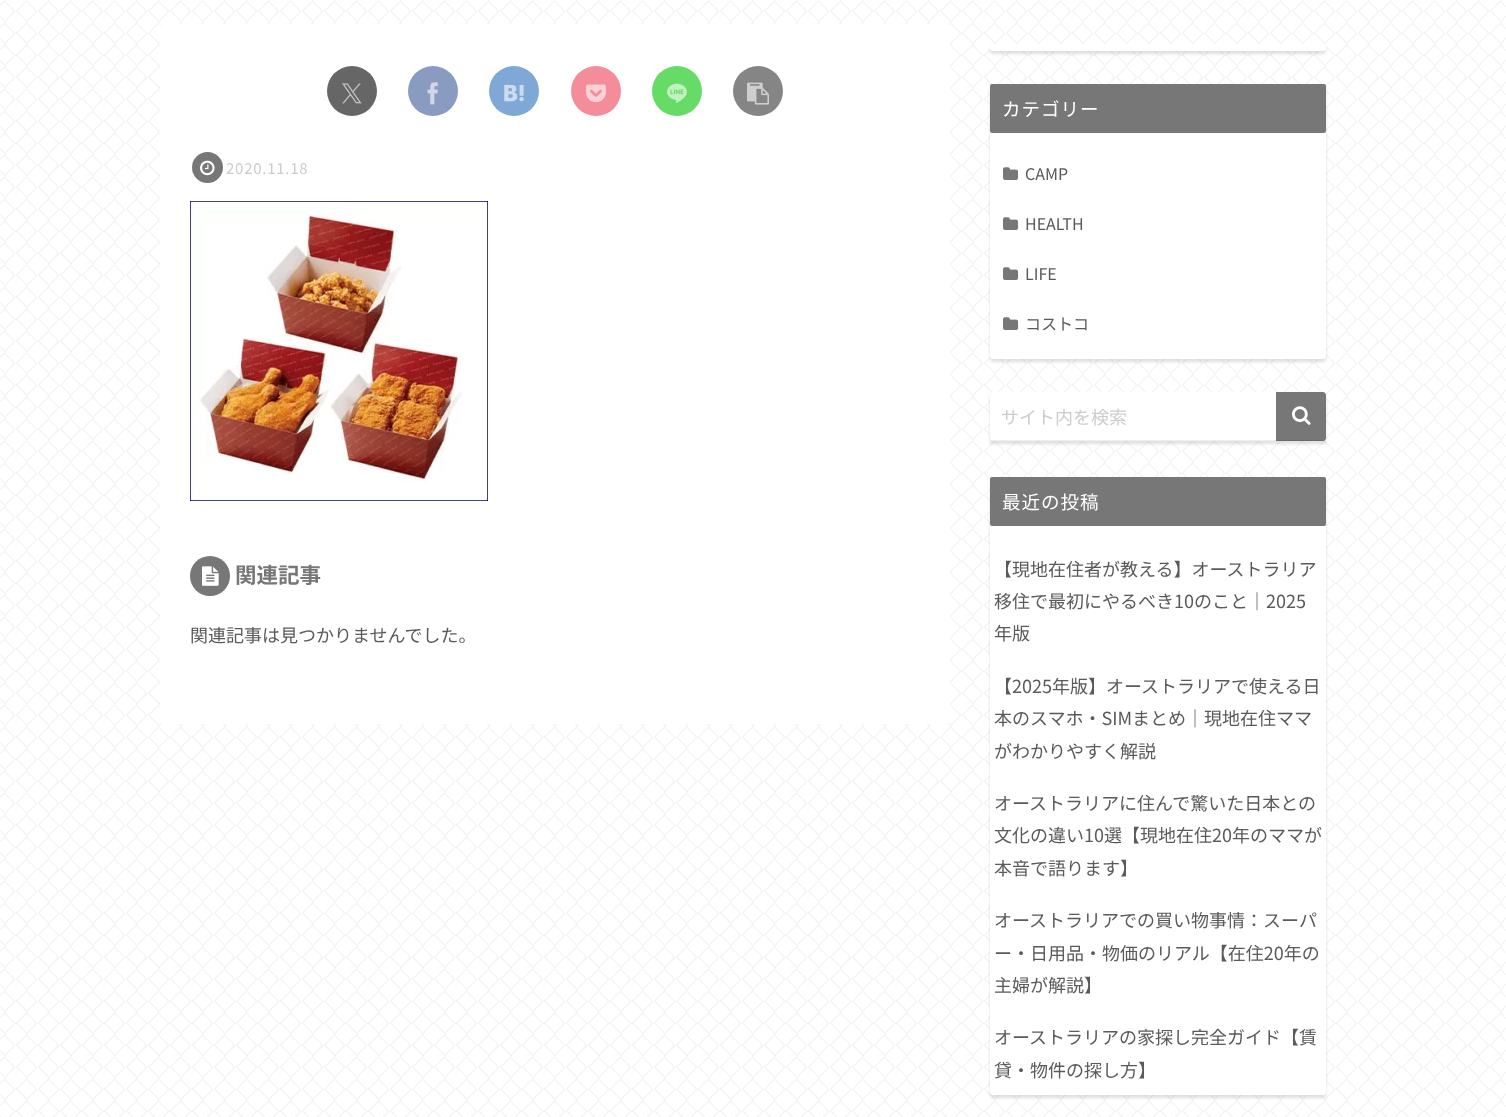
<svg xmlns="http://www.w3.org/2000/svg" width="1506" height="1117">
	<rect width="100%" height="100%" fill="#FFFFFF" />
	<image x="0" y="0" width="1506" height="1117" href="assets/img1.png" />
	<rect x="160" y="24" width="790" height="700" rx="4" fill="#FFFFFF" />
	<circle cx="352" cy="91" r="25" fill="#666666" />
	<image x="342" y="83" width="20" height="21" href="assets/img2.png" />
	<circle cx="433" cy="91" r="25" fill="#899BC1" />
	<image x="427" y="82" width="11" height="23" href="assets/img3.png" />
	<circle cx="514" cy="91" r="25" fill="#80A8D7" />
	<image x="504" y="84" width="20" height="18" href="assets/img4.png" />
	<circle cx="596" cy="91" r="25" fill="#F58C9A" />
	<image x="586" y="84" width="20" height="19" href="assets/img5.png" />
	<circle cx="677" cy="91" r="25" fill="#66DB66" />
	<image x="667" y="83" width="20" height="20" href="assets/img6.png" />
	<circle cx="758" cy="91" r="25" fill="#858585" />
	<image x="747" y="82" width="22" height="23" href="assets/img7.png" />
	<circle cx="207.5" cy="167.5" r="15.5" fill="#777777" />
	<image x="200" y="160" width="15" height="16" href="assets/img8.png" />
	<text x="226" y="174" font-family="Noto Sans JP" font-size="15" letter-spacing="0.75" fill="#CCCCCC">2020.11.18</text>
	<image x="190" y="201" width="298" height="300" href="assets/img9.png" />
	<circle cx="210" cy="576" r="20" fill="#777777" />
	<image x="202" y="566" width="17" height="20" href="assets/img10.png" />
	<text x="235" y="583" font-family="Noto Sans JP" font-size="21.5" font-weight="700" fill="#777777">関連記事</text>
	<text x="190" y="642" font-family="Noto Sans JP" font-size="18" fill="#5A5A5A">関連記事は見つかりませんでした。</text>
	<rect x="990" y="47" width="336" height="7" rx="3" fill="#000000" fill-opacity="0.12" filter="blur(1.5px)" />
	<rect x="990" y="44" width="336" height="7" rx="3" fill="#FFFFFF" />
	<rect x="990" y="87" width="336" height="275" rx="3" fill="#000000" fill-opacity="0.12" filter="blur(1.5px)" />
	<rect x="990" y="84" width="336" height="275" rx="3" fill="#FFFFFF" />
	<rect x="990" y="84" width="336" height="49" rx="2" fill="#777777" />
	<text x="1002" y="116" font-family="Noto Sans JP" font-size="18.5" letter-spacing="1" fill="#FFFFFF">カテゴリー</text>
	<image x="1003" y="167" width="16" height="13" href="assets/img11.png" />
	<text x="1025" y="180" font-family="Noto Sans JP" font-size="16" fill="#5A5A5A">CAMP</text>
	<image x="1003" y="217" width="16" height="13" href="assets/img11.png" />
	<text x="1025" y="230" font-family="Noto Sans JP" font-size="16" fill="#5A5A5A">HEALTH</text>
	<image x="1003" y="267" width="16" height="13" href="assets/img11.png" />
	<text x="1025" y="280" font-family="Noto Sans JP" font-size="16" fill="#5A5A5A">LIFE</text>
	<image x="1003" y="317" width="16" height="13" href="assets/img11.png" />
	<text x="1025" y="330" font-family="Noto Sans JP" font-size="16" fill="#5A5A5A">コストコ</text>
	<rect x="990" y="395" width="336" height="49" fill="#000000" fill-opacity="0.12" filter="blur(1.5px)" />
	<rect x="990" y="392" width="336" height="49" rx="4" fill="#FFFFFF" />
	<rect x="992" y="440" width="332" height="1" fill="#EFEFEF" />
	<text x="1001" y="424" font-family="Noto Sans JP" font-size="18" fill="#CCCCCC">サイト内を検索</text>
	<path d="M1276 392H1323C1324.5 392 1326 393.5 1326 395V438C1326 439.5 1324.5 441 1323 441H1276Z" fill="#777777" />
	<rect x="1276" y="440" width="49" height="1" fill="#000000" fill-opacity="0.1" />
	<image x="1292" y="406" width="19" height="19" href="assets/img12.png" />
	<rect x="990" y="480" width="336" height="618" rx="3" fill="#000000" fill-opacity="0.12" filter="blur(1.5px)" />
	<rect x="990" y="477" width="336" height="618" rx="3" fill="#FFFFFF" />
	<rect x="990" y="477" width="336" height="49" rx="2" fill="#777777" />
	<text x="1002" y="509" font-family="Noto Sans JP" font-size="18.5" letter-spacing="1" fill="#FFFFFF">最近の投稿</text>
	<g font-family="Noto Sans JP" font-size="18" fill="#5A5A5A">
		<text x="994" y="576">【現地在住者が教える】オーストラリア</text>
		<text x="994" y="608">移住で最初にやるべき10のこと｜2025</text>
		<text x="994" y="640">年版</text>
		<text x="994" y="693">【2025年版】オーストラリアで使える日</text>
		<text x="994" y="725">本のスマホ・SIMまとめ｜現地在住ママ</text>
		<text x="994" y="758">がわかりやすく解説</text>
		<text x="994" y="810">オーストラリアに住んで驚いた日本との</text>
		<text x="994" y="842">文化の違い10選【現地在住20年のママが</text>
		<text x="994" y="875">本音で語ります】</text>
		<text x="994" y="927">オーストラリアでの買い物事情：スーパ</text>
		<text x="994" y="960">ー・日用品・物価のリアル【在住20年の</text>
		<text x="994" y="992">主婦が解説】</text>
		<text x="994" y="1044">オーストラリアの家探し完全ガイド【賃</text>
		<text x="994" y="1077">貸・物件の探し方】</text>
	</g>
</svg>
